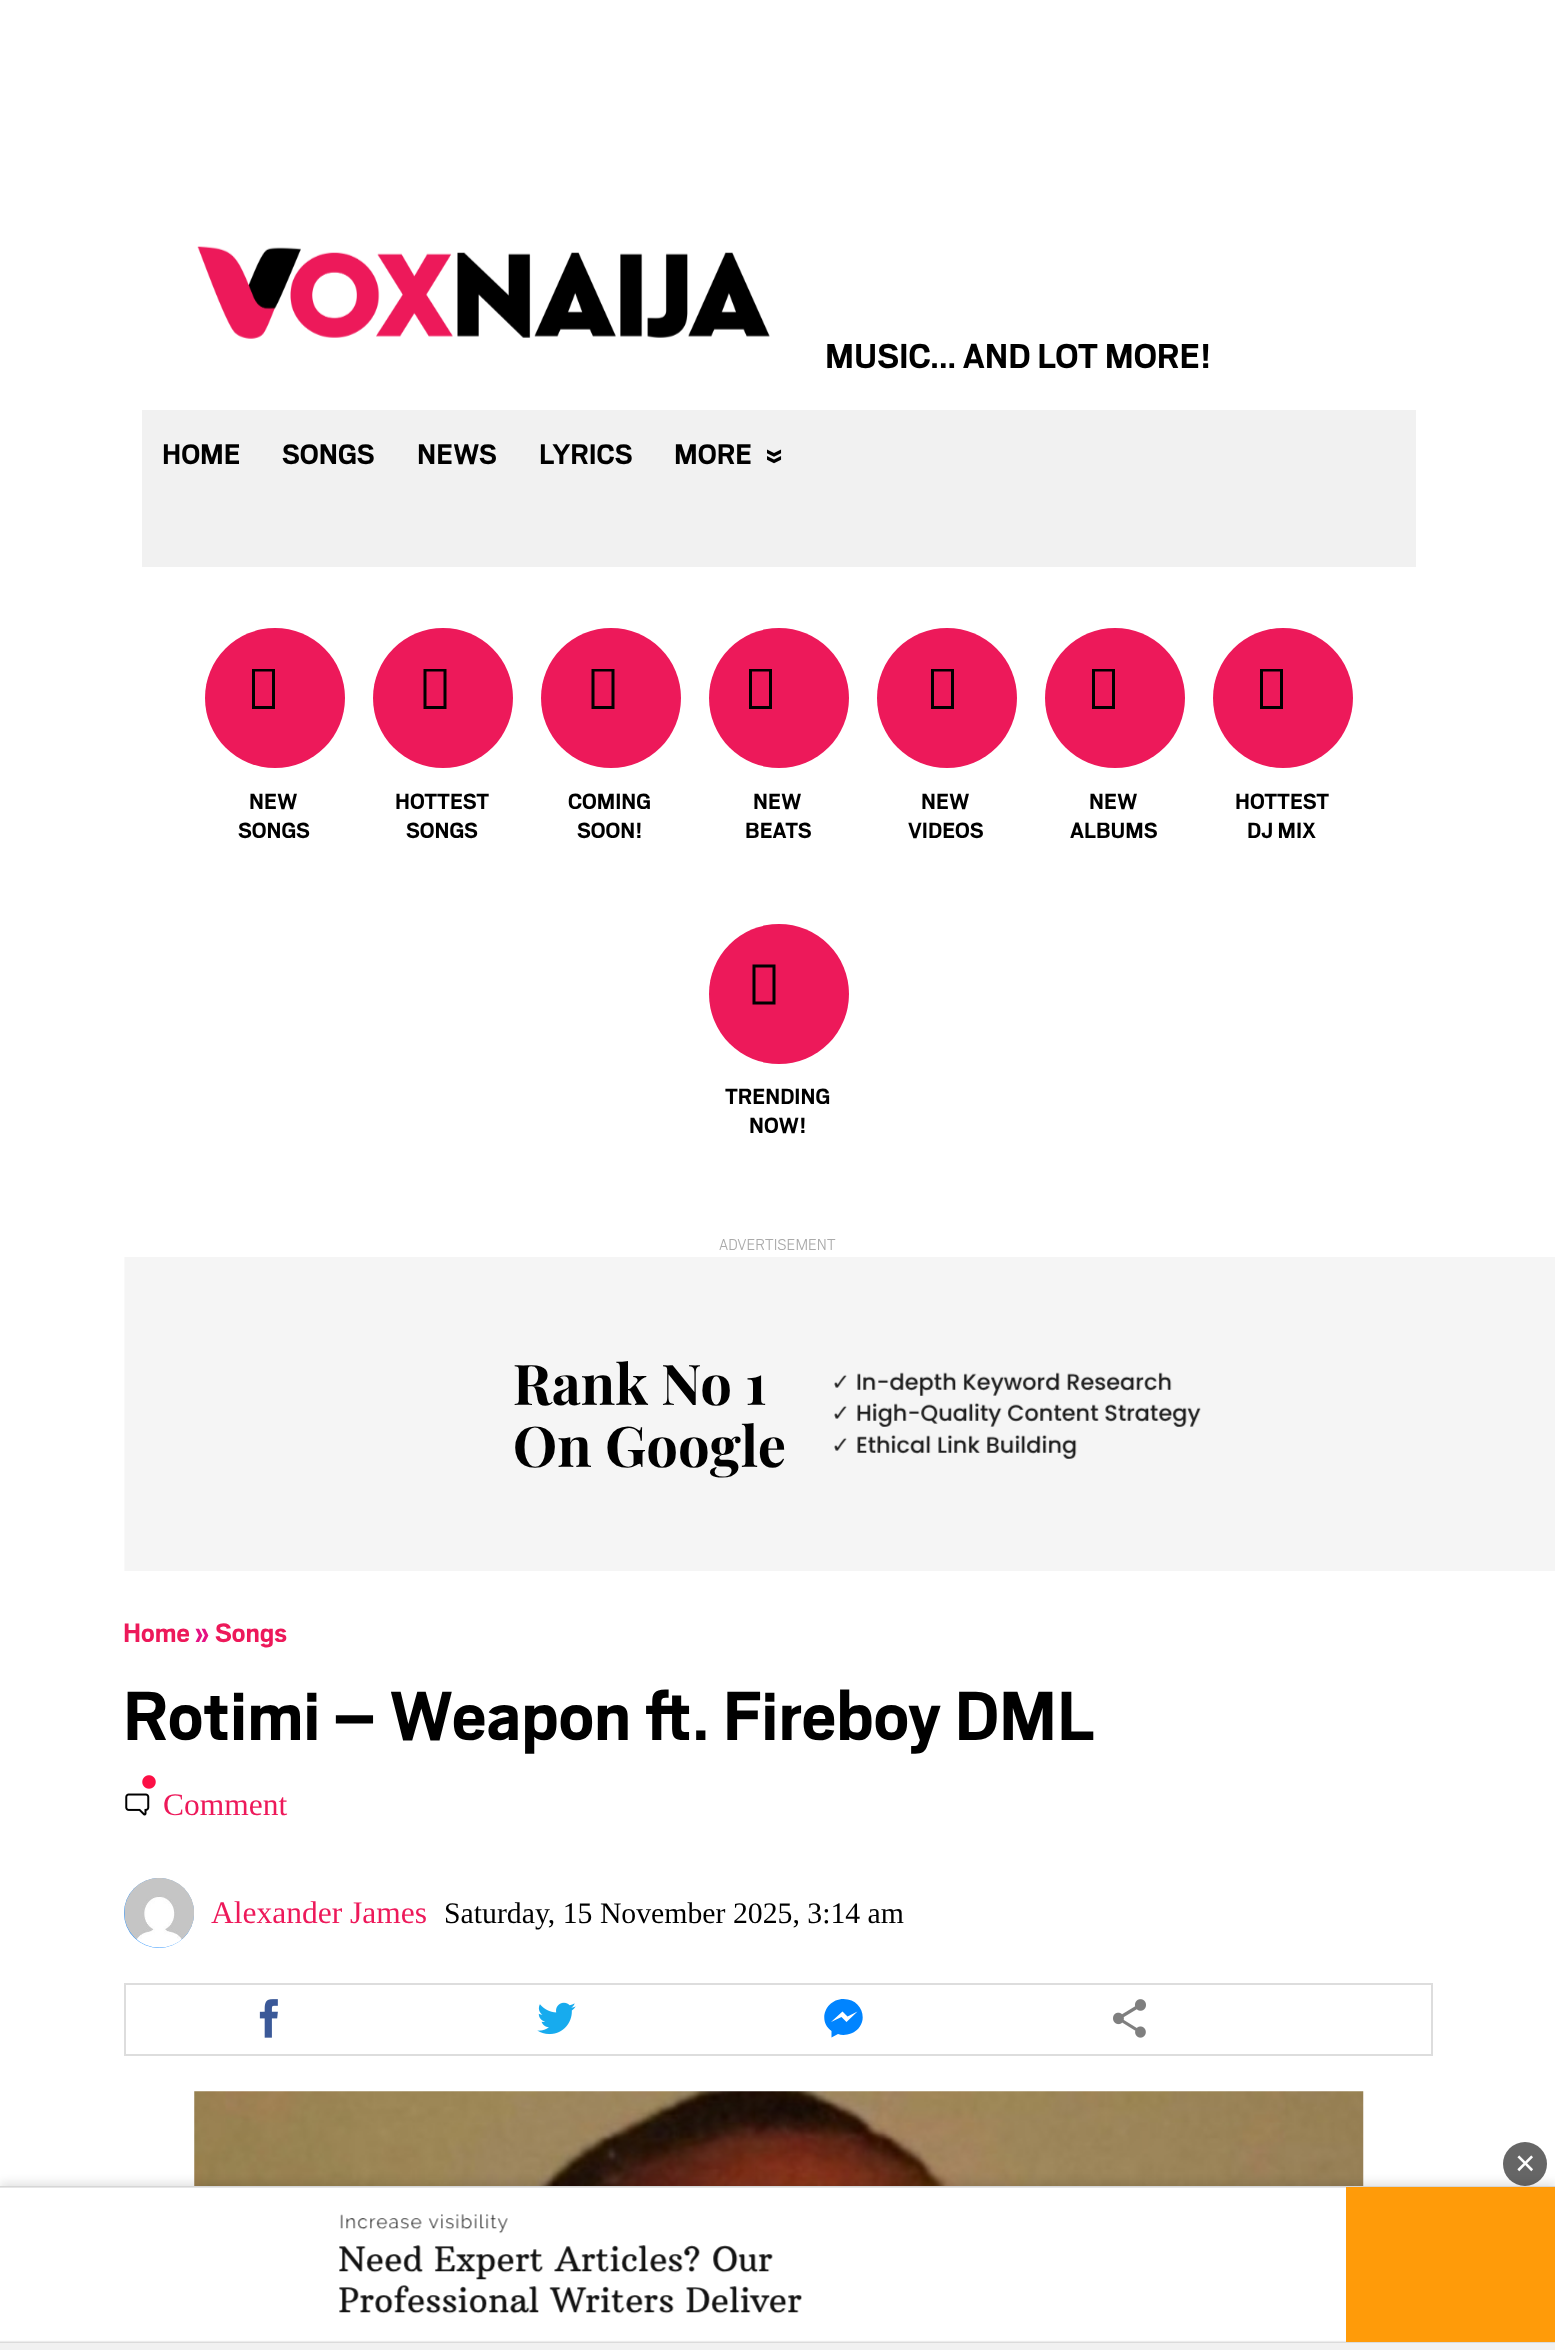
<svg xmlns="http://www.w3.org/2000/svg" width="1555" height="2350">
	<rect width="100%" height="100%" fill="#FFFFFF" />
	<image x="197" y="246" width="573" height="93" href="assets/img1.png" />
	<rect x="142" y="410" width="1274" height="157" fill="#F1F1F1" />
	<text x="825" y="368" font-family="'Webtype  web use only'" font-size="38.5" font-weight="700" fill="#000000">MUSIC... AND LOT MORE!</text>
	<g font-family="'Webtype  web use only'" font-size="31.5" font-weight="700" fill="#000000">
		<text x="162" y="464">HOME</text>
		<text x="282" y="464">SONGS</text>
		<text x="417" y="464">NEWS</text>
		<text x="539" y="464">LYRICS</text>
		<text x="674" y="464">MORE</text>
		<text x="767" y="449" transform="rotate(90 767 449)">»</text>
	</g>
	<circle cx="275" cy="698" r="70" fill="#ED195A" />
	<path d="M252 709V669H275V709ZM255 706H272V671.5H255Z" fill="#000000" />
	<g font-family="'Webtype  web use only'" font-size="24.5" font-weight="700" fill="#000000">
		<text x="249" y="809">NEW</text>
		<text x="238" y="838">SONGS</text>
	</g>
	<circle cx="443" cy="698" r="70" fill="#ED195A" />
	<path d="M423.5 709V669H446.5V709ZM426.5 706H443.5V671.5H426.5Z" fill="#000000" />
	<g font-family="'Webtype  web use only'" font-size="24.5" font-weight="700" fill="#000000">
		<text x="395" y="809">HOTTEST</text>
		<text x="406" y="838">SONGS</text>
	</g>
	<circle cx="611" cy="698" r="70" fill="#ED195A" />
	<path d="M591.5 709V669H614.5V709ZM594.5 706H611.5V671.5H594.5Z" fill="#000000" />
	<g font-family="'Webtype  web use only'" font-size="24.5" font-weight="700" fill="#000000">
		<text x="568" y="809">COMING</text>
		<text x="577" y="838">SOON!</text>
	</g>
	<circle cx="779" cy="698" r="70" fill="#ED195A" />
	<path d="M749 709V669H772V709ZM752 706H769V671.5H752Z" fill="#000000" />
	<g font-family="'Webtype  web use only'" font-size="24.5" font-weight="700" fill="#000000">
		<text x="753" y="809">NEW</text>
		<text x="745" y="838">BEATS</text>
	</g>
	<circle cx="947" cy="698" r="70" fill="#ED195A" />
	<path d="M931 709V669H954V709ZM934 706H951V671.5H934Z" fill="#000000" />
	<g font-family="'Webtype  web use only'" font-size="24.5" font-weight="700" fill="#000000">
		<text x="921" y="809">NEW</text>
		<text x="908" y="838">VIDEOS</text>
	</g>
	<circle cx="1115" cy="698" r="70" fill="#ED195A" />
	<path d="M1092 709V669H1115V709ZM1095 706H1112V671.5H1095Z" fill="#000000" />
	<g font-family="'Webtype  web use only'" font-size="24.5" font-weight="700" fill="#000000">
		<text x="1089" y="809">NEW</text>
		<text x="1070" y="838">ALBUMS</text>
	</g>
	<circle cx="1283" cy="698" r="70" fill="#ED195A" />
	<path d="M1260 709V669H1283V709ZM1263 706H1280V671.5H1263Z" fill="#000000" />
	<g font-family="'Webtype  web use only'" font-size="24.5" font-weight="700" fill="#000000">
		<text x="1235" y="809">HOTTEST</text>
		<text x="1247" y="838">DJ MIX</text>
	</g>
	<circle cx="779" cy="994" r="70" fill="#ED195A" />
	<path d="M752.5 1004.5V964.5H775.5V1004.5ZM755.5 1001.5H772.5V967.5H755.5Z" fill="#000000" />
	<g font-family="'Webtype  web use only'" font-size="24.5" font-weight="700" fill="#000000">
		<text x="725" y="1104">TRENDING</text>
		<text x="749" y="1133">NOW!</text>
	</g>
	<text x="719" y="1250" font-family="'Webtype  web use only'" font-size="17.5" font-weight="300" fill="#AAAAAA">ADVERTISEMENT</text>
	<image x="124" y="1257" width="1431" height="314" href="assets/img2.png" />
	<text x="123" y="1642" font-family="'Webtype  web use only'" font-size="29.75" font-weight="700" fill="#ED195A">Home</text>
	<text x="195" y="1642" font-family="'Webtype  web use only'" font-size="29.75" font-weight="700" fill="#E51284">»</text>
	<text x="215" y="1642" font-family="'Webtype  web use only'" font-size="29.75" font-weight="700" fill="#ED195A">Songs</text>
	<text x="123" y="1740" font-family="'Webtype  web use only'" font-size="77" font-weight="700" fill="#000000">Rotimi – Weapon ft. Fireboy DML</text>
	<image x="142" y="1775" width="14" height="14" href="assets/img3.png" />
	<image x="125" y="1793" width="25" height="23" href="assets/img4.png" />
	<text x="163" y="1815" font-family="Liberation Serif" font-size="31.5" fill="#ED195A">Comment</text>
	<circle cx="159" cy="1913" r="35" fill="#1888FC" />
	<image x="124" y="1878" width="70" height="70" href="assets/img5.png" />
	<text x="211" y="1923" font-family="Liberation Serif" font-size="31.5" fill="#ED195A">Alexander James</text>
	<text x="444" y="1923" font-family="Liberation Serif" font-size="29.75" fill="#000000">Saturday, 15 November 2025, 3:14 am</text>
	<rect x="125" y="1984" width="1307" height="71" fill="none" stroke="#DDDDDD" stroke-width="2" />
	<image x="259" y="1999" width="19" height="39" href="assets/img6.png" />
	<image x="537" y="2002" width="39" height="33" href="assets/img7.png" />
	<path d="M843.5 1999C826 1999 817 2020.5 831.5 2031V2037.5L838 2034C842 2035.5 847 2035 851 2033.5C870.5 2025.5 864 1999 843.5 1999ZM846.5 2022L841.5 2017L831 2022L842.5 2011.5L847.5 2016.5L857.5 2011.5Z" fill="#0084FF" />
	<image x="1113" y="1999" width="33" height="39" href="assets/img8.png" />
	<image x="194" y="2091" width="1170" height="95" href="assets/img9.png" />
	<rect x="0" y="2182" width="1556" height="165" fill="#000000" fill-opacity="0.1" filter="blur(4.5px)" />
	<rect x="0" y="2343" width="1555" height="7" fill="#F1F1F1" />
	<circle cx="1525" cy="2164" r="22" fill="#000000" fill-opacity="0.6" />
	<text x="1515" y="2175" font-family="Liberation Sans" font-size="35" fill="#FFFFFF">×</text>
	<image x="0" y="2186" width="1555" height="157" href="assets/img10.png" />
</svg>
